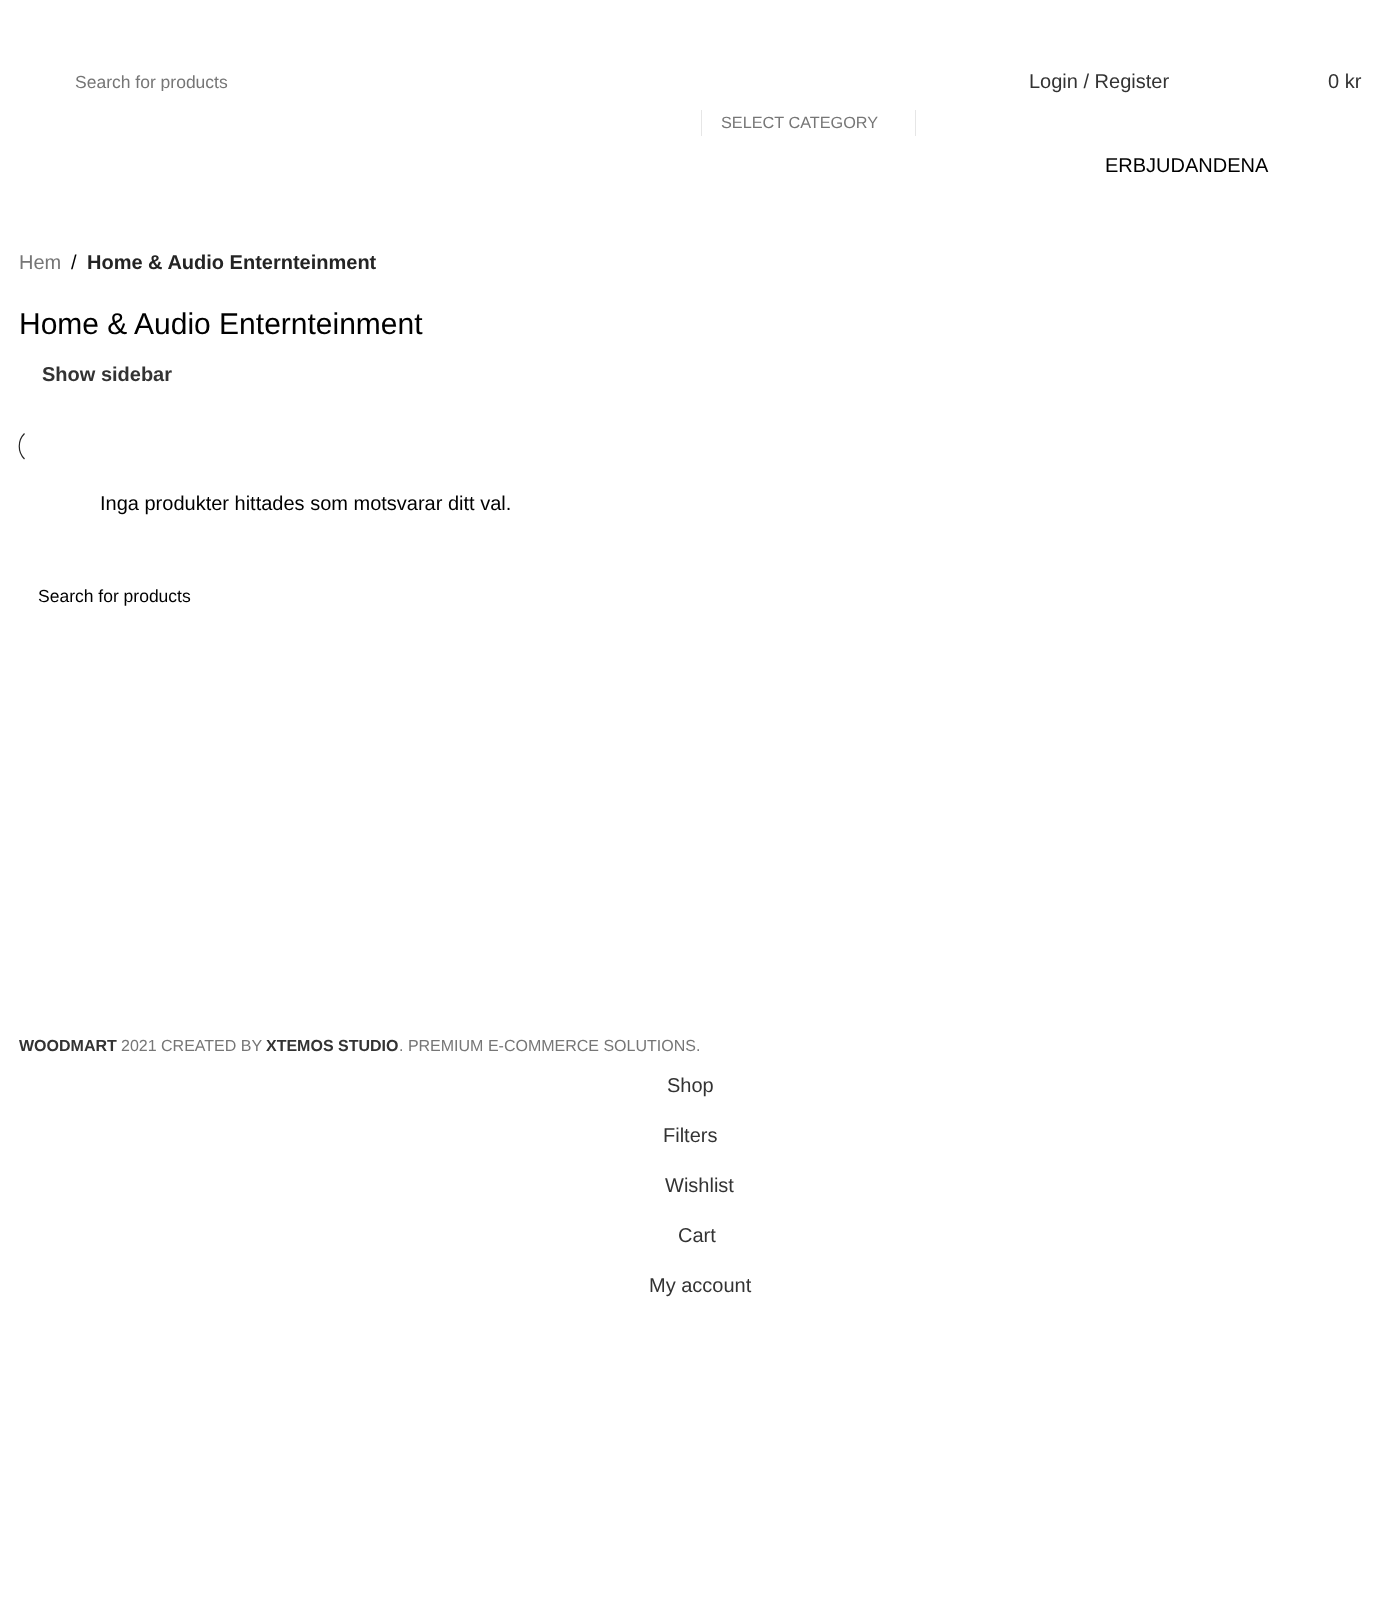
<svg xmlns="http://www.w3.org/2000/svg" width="1379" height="1614">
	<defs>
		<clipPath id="clip1"><rect x="75" y="71" width="589" height="20" /></clipPath>
	</defs>
	<rect width="100%" height="100%" fill="#FFFFFF" />
	<g clip-path="url(#clip1)">
		<text x="75" y="88" font-family="Liberation Sans" font-size="17.5" fill="#767676">Search for products</text>
	</g>
	<rect x="915" y="110" width="1" height="26" fill="#E6E6E6" />
	<rect x="701" y="110" width="1" height="26" fill="#E6E6E6" />
	<text x="721" y="128" font-family="Liberation Sans" font-size="16.25" fill="#767676">SELECT CATEGORY</text>
	<g font-family="Liberation Sans" font-size="20" fill="#333333">
		<text x="1029" y="88">Login / Register</text>
		<text x="1328" y="88">0 kr</text>
	</g>
	<text x="1105" y="172" font-family="Liberation Sans" font-size="20" fill="#000000">ERBJUDANDENA</text>
	<text x="19" y="269" font-family="Liberation Sans" font-size="20" fill="#767676">Hem</text>
	<text x="71" y="269" font-family="Liberation Sans" font-size="20" fill="#000000">/</text>
	<text x="87" y="269" font-family="Liberation Sans" font-size="20" font-weight="700" fill="#242424">Home &amp; Audio Enternteinment</text>
	<text x="19" y="334" font-family="Liberation Sans" font-size="30" fill="#000000">Home &amp; Audio Enternteinment</text>
	<text x="42" y="381" font-family="Liberation Sans" font-size="20" font-weight="700" fill="#333333">Show sidebar</text>
	<path d="M24.5 459C17.5 452 17.5 440.5 24.5 433.5" fill="none" stroke="#242424" stroke-width="1.2" />
	<text x="100" y="510" font-family="Liberation Sans" font-size="20" fill="#000000">Inga produkter hittades som motsvarar ditt val.</text>
	<text x="38" y="602" font-family="Liberation Sans" font-size="17.5" fill="#000000">Search for products</text>
	<text x="19" y="1051" font-family="Liberation Sans" font-size="16" font-weight="700" fill="#333333">WOODMART</text>
	<text x="121" y="1051" font-family="Liberation Sans" font-size="16" fill="#767676">2021 CREATED BY</text>
	<text x="266" y="1051" font-family="Liberation Sans" font-size="16" font-weight="700" fill="#333333">XTEMOS STUDIO</text>
	<text x="399" y="1051" font-family="Liberation Sans" font-size="16" fill="#767676">. PREMIUM E-COMMERCE SOLUTIONS.</text>
	<g font-family="Liberation Sans" font-size="20" fill="#333333">
		<text x="667" y="1092">Shop</text>
		<text x="663" y="1142">Filters</text>
		<text x="665" y="1192">Wishlist</text>
		<text x="678" y="1242">Cart</text>
		<text x="649" y="1292">My account</text>
	</g>
</svg>
